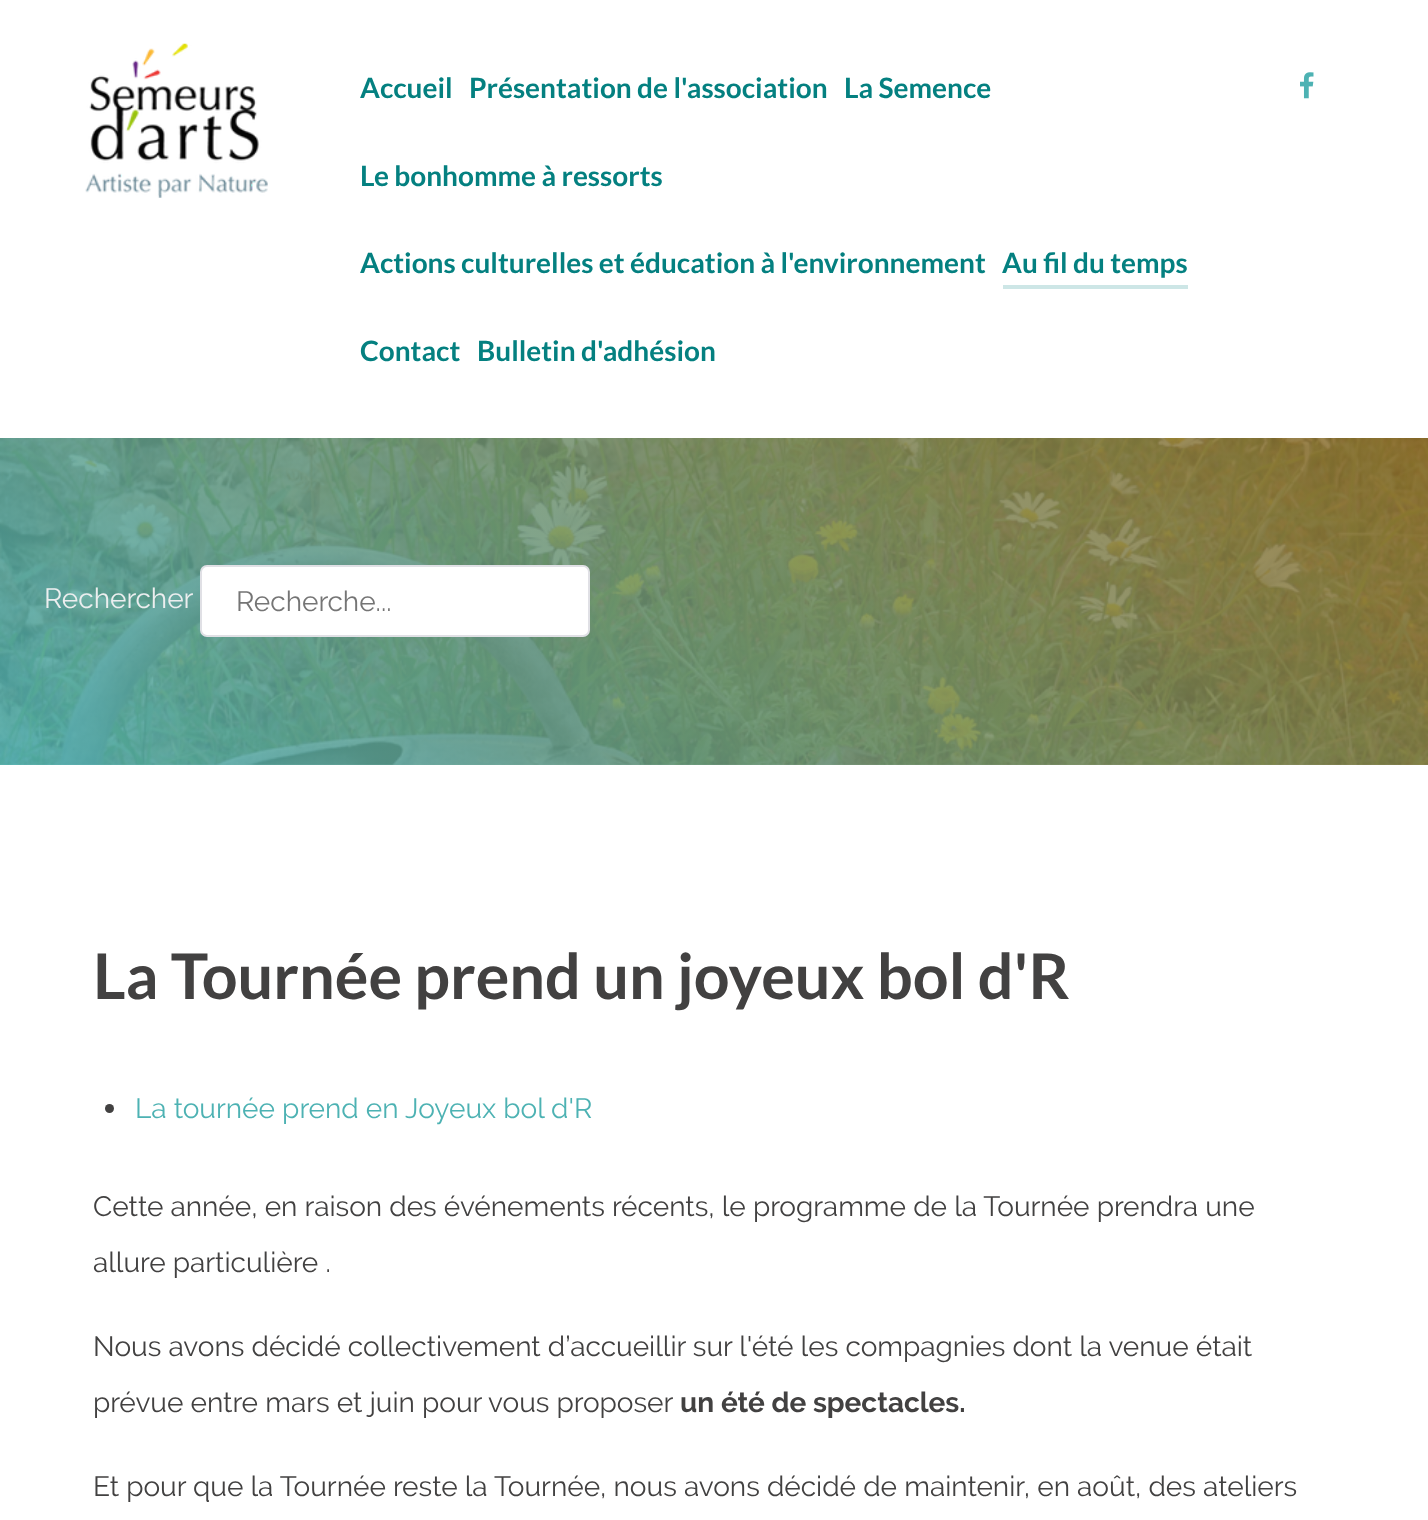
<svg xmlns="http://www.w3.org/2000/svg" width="1428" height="1520">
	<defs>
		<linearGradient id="g1" gradientUnits="userSpaceOnUse" x1="338" y1="1049" x2="1090" y2="154"><stop offset="0" stop-color="#4DB2B3" stop-opacity="0.85" /><stop offset="1" stop-color="#916D28" stop-opacity="0.85" /></linearGradient>
	</defs>
	<rect width="100%" height="100%" fill="#FFFFFF" />
	<image x="85" y="43" width="183" height="155" href="assets/img1.png" />
	<g font-family="Lato" font-size="28" font-weight="700" fill="#048080">
		<text x="360" y="98">Accueil</text>
		<text x="469" y="98">Présentation de l'association</text>
		<text x="844" y="98">La Semence</text>
		<text x="360" y="186">Le bonhomme à ressorts</text>
		<text x="360" y="273">Actions culturelles et éducation à l'environnement</text>
	</g>
	<rect x="1003" y="285" width="185" height="4" fill="#CDE6E6" />
	<g font-family="Lato" font-size="28" font-weight="700" fill="#048080">
		<text x="1002" y="273">Au fil du temps</text>
		<text x="360" y="361">Contact</text>
		<text x="477" y="361">Bulletin d'adhésion</text>
	</g>
	<image x="1300" y="72" width="14" height="27" href="assets/img2.png" />
	<image x="0" y="438" width="1428" height="327" href="assets/img3.png" />
	<rect x="0" y="438" width="1428" height="327" fill="url(#g1)" />
	<text x="44" y="608" font-family="Raleway" font-size="28" fill="#ECEEEF">Rechercher</text>
	<rect x="201" y="566" width="388" height="70" rx="6" fill="#FFFFFF" stroke="#E0E0E5" stroke-width="2" />
	<text x="236" y="611" font-family="Raleway" font-size="28" fill="#757575">Recherche...</text>
	<text x="93" y="999" font-family="Lato" font-size="63" font-weight="700" fill="#424141">La Tournée prend un joyeux bol d'R</text>
	<circle cx="109.5" cy="1108.5" r="4.5" fill="#424141" />
	<text x="135" y="1118" font-family="Raleway" font-size="28" fill="#4DB2B3">La tournée prend en Joyeux bol d'R</text>
	<g font-family="Raleway" font-size="28" fill="#424141">
		<text x="93" y="1216">Cette année, en raison des événements récents, le programme de la Tournée prendra une</text>
		<text x="93" y="1272">allure particulière .</text>
		<text x="93" y="1356">Nous avons décidé collectivement d’accueillir sur l'été les compagnies dont la venue était</text>
		<text x="93" y="1412">prévue entre mars et juin pour vous proposer</text>
	</g>
	<text x="680" y="1412" font-family="Raleway" font-size="28" font-weight="700" fill="#424141">un été de spectacles.</text>
	<text x="93" y="1496" font-family="Raleway" font-size="28" fill="#424141">Et pour que la Tournée reste la Tournée, nous avons décidé de maintenir, en août, des ateliers</text>
</svg>
